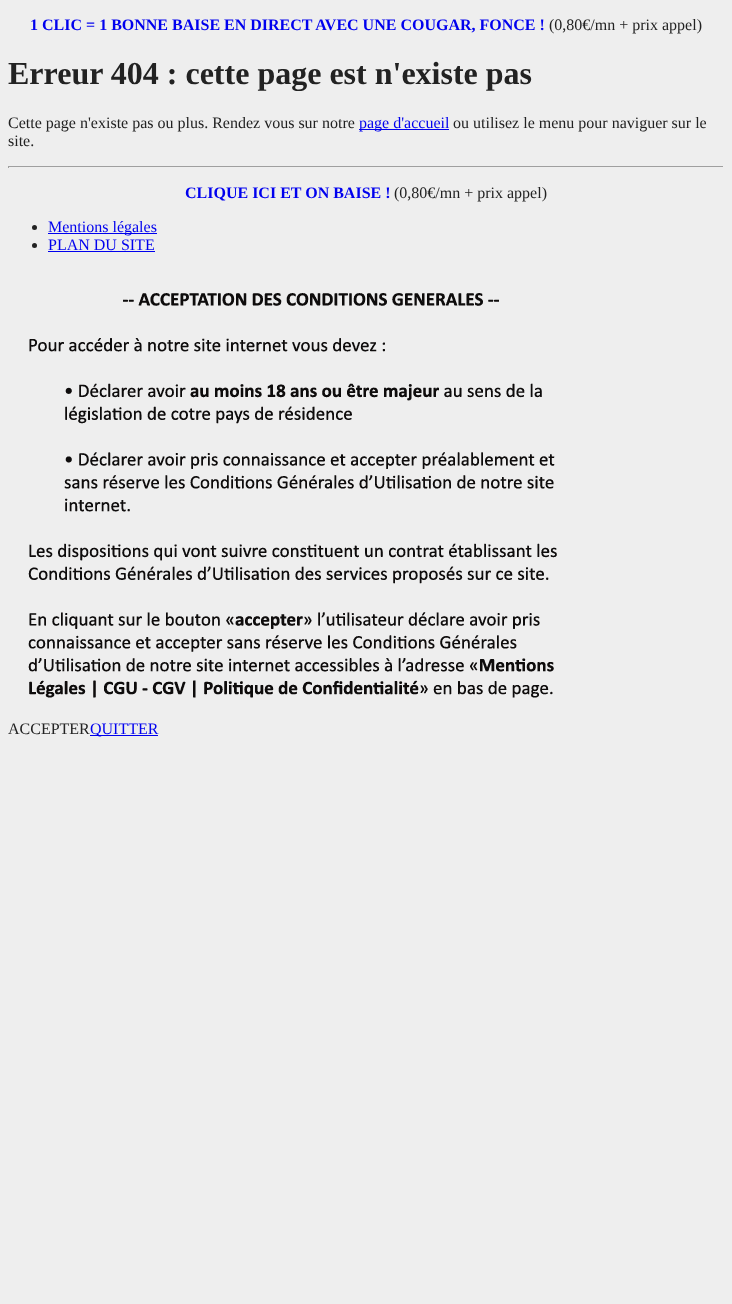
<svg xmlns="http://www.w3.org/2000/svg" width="732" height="1304">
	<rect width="100%" height="100%" fill="#EEEEEE" />
	<text x="30" y="30" font-family="Liberation Serif" font-size="16" font-weight="700" fill="#0000EE">1 CLIC = 1 BONNE BAISE EN DIRECT AVEC UNE COUGAR, FONCE !</text>
	<text x="549" y="30" font-family="Liberation Serif" font-size="16" fill="#222222">(0,80€/mn + prix appel)</text>
	<text x="8" y="84" font-family="Liberation Serif" font-size="32" font-weight="700" fill="#222222">Erreur 404 : cette page est n'existe pas</text>
	<text x="8" y="128" font-family="Liberation Serif" font-size="16" fill="#222222">Cette page n'existe pas ou plus. Rendez vous sur notre</text>
	<rect x="359" y="129" width="90" height="1" fill="#0000EE" />
	<text x="359" y="128" font-family="Liberation Serif" font-size="16" fill="#0000EE">page d'accueil</text>
	<g font-family="Liberation Serif" font-size="16" fill="#222222">
		<text x="453" y="128">ou utilisez le menu pour naviguer sur le</text>
		<text x="8" y="146">site.</text>
	</g>
	<rect x="8" y="166" width="716" height="1" fill="#9F9F9F" />
	<rect x="723" y="166" width="1" height="2" fill="#EEEEEE" />
	<rect x="8" y="166" width="1" height="2" fill="#9F9F9F" />
	<text x="185" y="198" font-family="Liberation Serif" font-size="16" font-weight="700" fill="#0000EE">CLIQUE ICI ET ON BAISE !</text>
	<text x="394" y="198" font-family="Liberation Serif" font-size="16" fill="#222222">(0,80€/mn + prix appel)</text>
	<circle cx="34.5" cy="227.5" r="2.5" fill="#222222" />
	<rect x="48" y="233" width="109" height="1" fill="#0000EE" />
	<text x="48" y="232" font-family="Liberation Serif" font-size="16" fill="#0000EE">Mentions légales</text>
	<circle cx="34.5" cy="245.5" r="2.5" fill="#222222" />
	<text x="48" y="250" font-family="Liberation Serif" font-size="16" fill="#0000EE">PLAN DU SITE</text>
	<rect x="48" y="251" width="107" height="1" fill="#0000EE" />
	<image x="28" y="293" width="529" height="405" href="assets/img1.png" />
	<text x="8" y="734" font-family="Liberation Serif" font-size="16" fill="#222222">ACCEPTER</text>
	<rect x="90" y="735" width="68" height="1" fill="#0000EE" />
	<text x="90" y="734" font-family="Liberation Serif" font-size="16" fill="#0000EE">QUITTER</text>
</svg>
